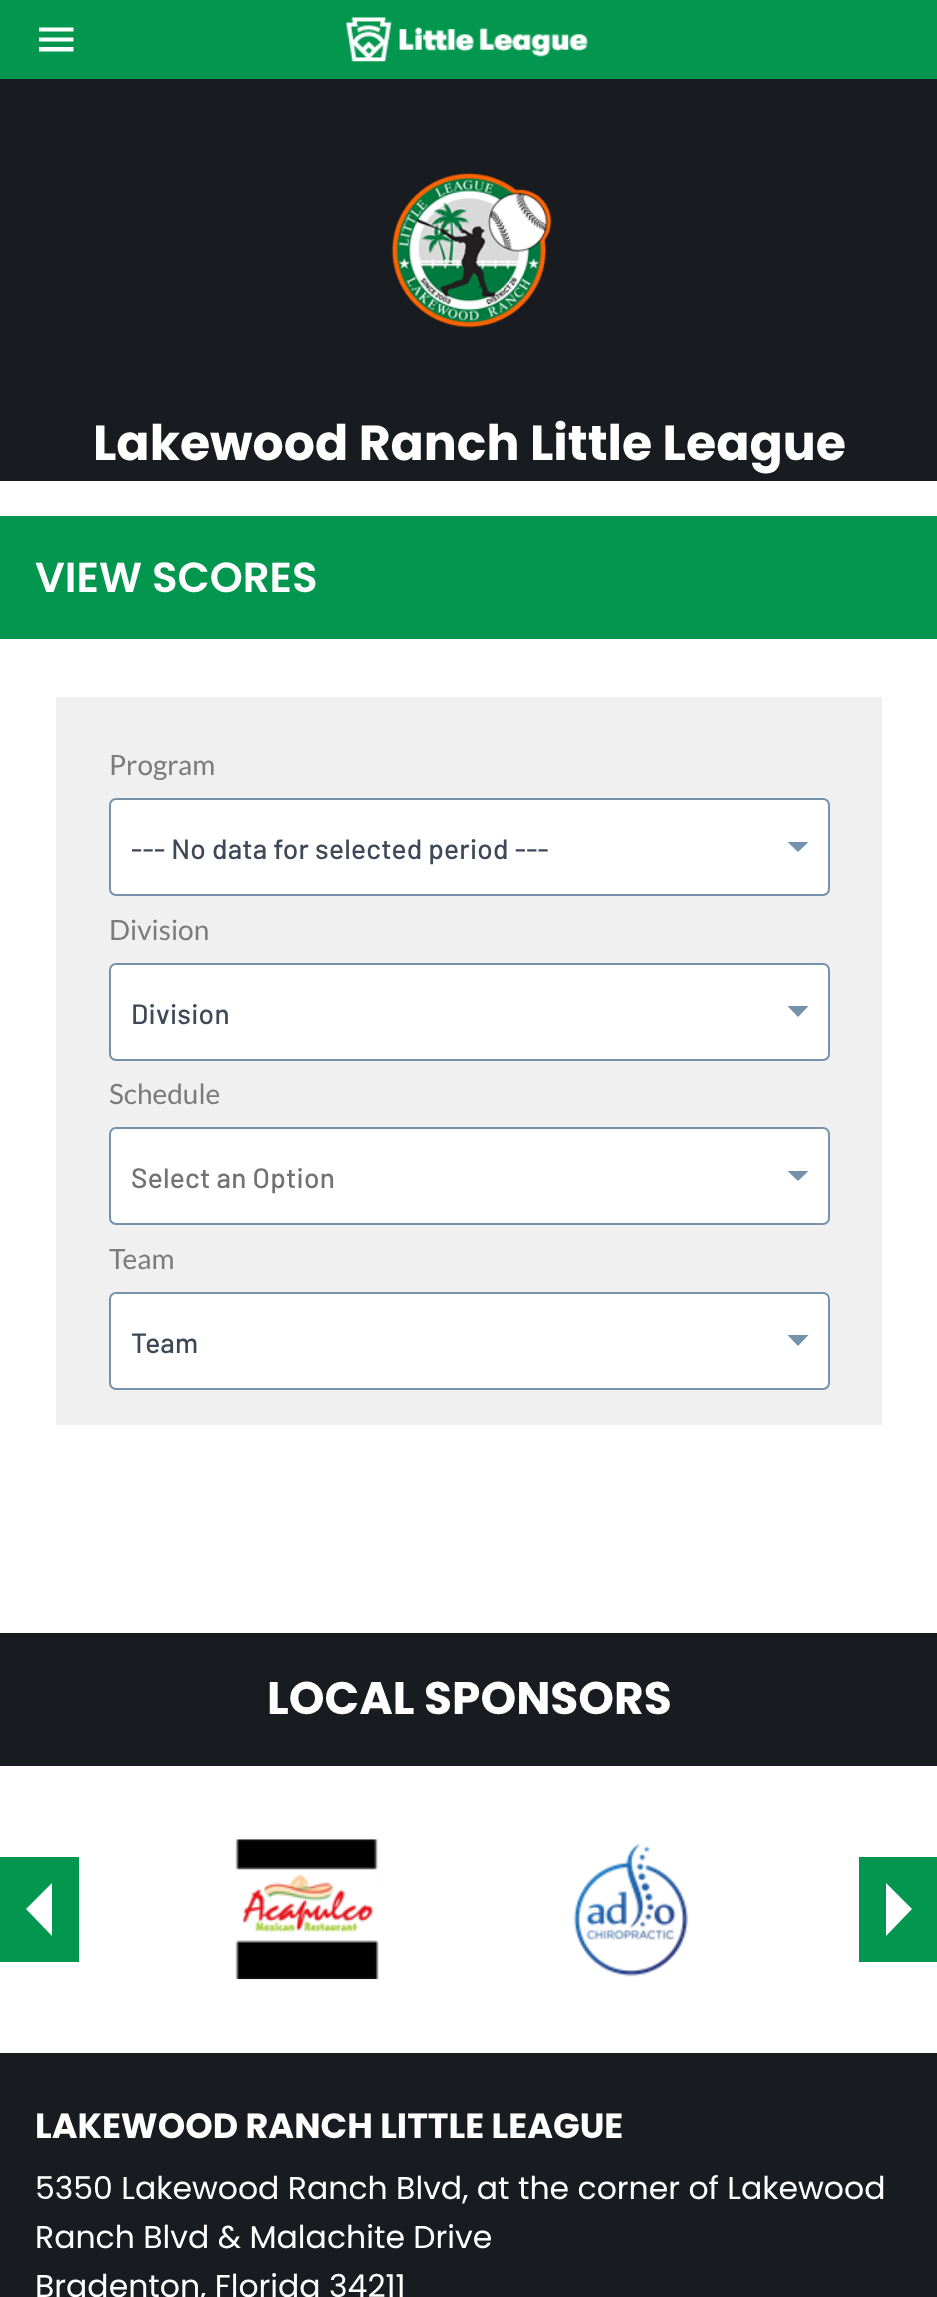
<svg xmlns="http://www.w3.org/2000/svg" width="937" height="2297">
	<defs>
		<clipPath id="clip1"><rect x="39" y="18" width="35" height="43" /></clipPath>
	</defs>
	<rect width="100%" height="100%" fill="#181B1F" />
	<rect x="0" y="0" width="937" height="79" fill="#02964E" />
	<g clip-path="url(#clip1)">
		<path d="M38.5 27.5H73.5V31.5H38.5ZM38.5 37.5H73.5V41.5H38.5ZM38.5 47H73.5V51.5H38.5Z" fill="#FFFFFF" />
	</g>
	<image x="346" y="17" width="242" height="45" href="assets/img1.png" />
	<image x="391" y="172" width="161" height="156" href="assets/img2.png" />
	<text x="93" y="460" font-family="Poppins" font-size="49" font-weight="700" fill="#FFFFFF">Lakewood Ranch Little League</text>
	<rect x="0" y="481" width="937" height="1152" fill="#FFFFFF" />
	<rect x="0" y="516" width="937" height="123" fill="#02964E" />
	<text x="35" y="592" font-family="Poppins" font-size="42" font-weight="600" fill="#FFFFFF">VIEW SCORES</text>
	<rect x="56" y="697" width="826" height="728" fill="#F0F0F0" />
	<text x="109" y="775" font-family="Lato" font-size="28" fill="#7B7B7B">Program</text>
	<rect x="110" y="799" width="719" height="96" rx="6" fill="#FFFFFF" stroke="#7492AC" stroke-width="2" />
	<text x="131" y="859" font-family="Barlow" font-size="28" font-weight="500" letter-spacing="0.25" fill="#3D4956">--- No data for selected period ---</text>
	<path d="M787.5 842H808.5L798 852Z" fill="#7492AC" />
	<text x="109" y="940" font-family="Lato" font-size="28" fill="#7B7B7B">Division</text>
	<rect x="110" y="964" width="719" height="96" rx="6" fill="#FFFFFF" stroke="#7492AC" stroke-width="2" />
	<text x="131" y="1024" font-family="Barlow" font-size="28" font-weight="500" letter-spacing="0.25" fill="#3D4956">Division</text>
	<path d="M787.5 1006H808.5L798 1017Z" fill="#7492AC" />
	<text x="109" y="1104" font-family="Lato" font-size="28" fill="#7B7B7B">Schedule</text>
	<rect x="110" y="1128" width="719" height="96" rx="6" fill="#FFFFFF" stroke="#7492AC" stroke-width="2" />
	<text x="131" y="1188" font-family="Barlow" font-size="28" font-weight="500" letter-spacing="0.25" fill="#737272">Select an Option</text>
	<path d="M787.5 1171H808.5L798 1181Z" fill="#7492AC" />
	<text x="109" y="1269" font-family="Lato" font-size="28" fill="#7B7B7B">Team</text>
	<rect x="110" y="1293" width="719" height="96" rx="6" fill="#FFFFFF" stroke="#7492AC" stroke-width="2" />
	<text x="131" y="1353" font-family="Barlow" font-size="28" font-weight="500" letter-spacing="0.25" fill="#3D4956">Team</text>
	<path d="M787.5 1335H808.5L798 1346Z" fill="#7492AC" />
	<text x="267" y="1714" font-family="Poppins" font-size="45.5" font-weight="700" fill="#FFFFFF">LOCAL SPONSORS</text>
	<rect x="0" y="1766" width="937" height="287" fill="#FFFFFF" />
	<rect x="0" y="1857" width="79" height="105" fill="#02964E" />
	<path d="M52 1883V1936L26 1909Z" fill="#FFFFFF" />
	<image x="235" y="1839" width="144" height="141" href="assets/img3.png" />
	<image x="573" y="1843" width="116" height="134" href="assets/img4.png" />
	<rect x="859" y="1857" width="78" height="105" fill="#02964E" />
	<path d="M886 1936V1883L912 1909Z" fill="#FFFFFF" />
	<text x="35" y="2138" font-family="Poppins" font-size="35" font-weight="700" fill="#FFFFFF">LAKEWOOD RANCH LITTLE LEAGUE</text>
	<g font-family="Poppins" font-size="31.5" fill="#FFFFFF">
		<text x="35" y="2199">5350 Lakewood Ranch Blvd, at the corner of Lakewood</text>
		<text x="35" y="2248">Ranch Blvd &amp; Malachite Drive</text>
		<text x="35" y="2297">Bradenton, Florida 34211</text>
	</g>
</svg>
